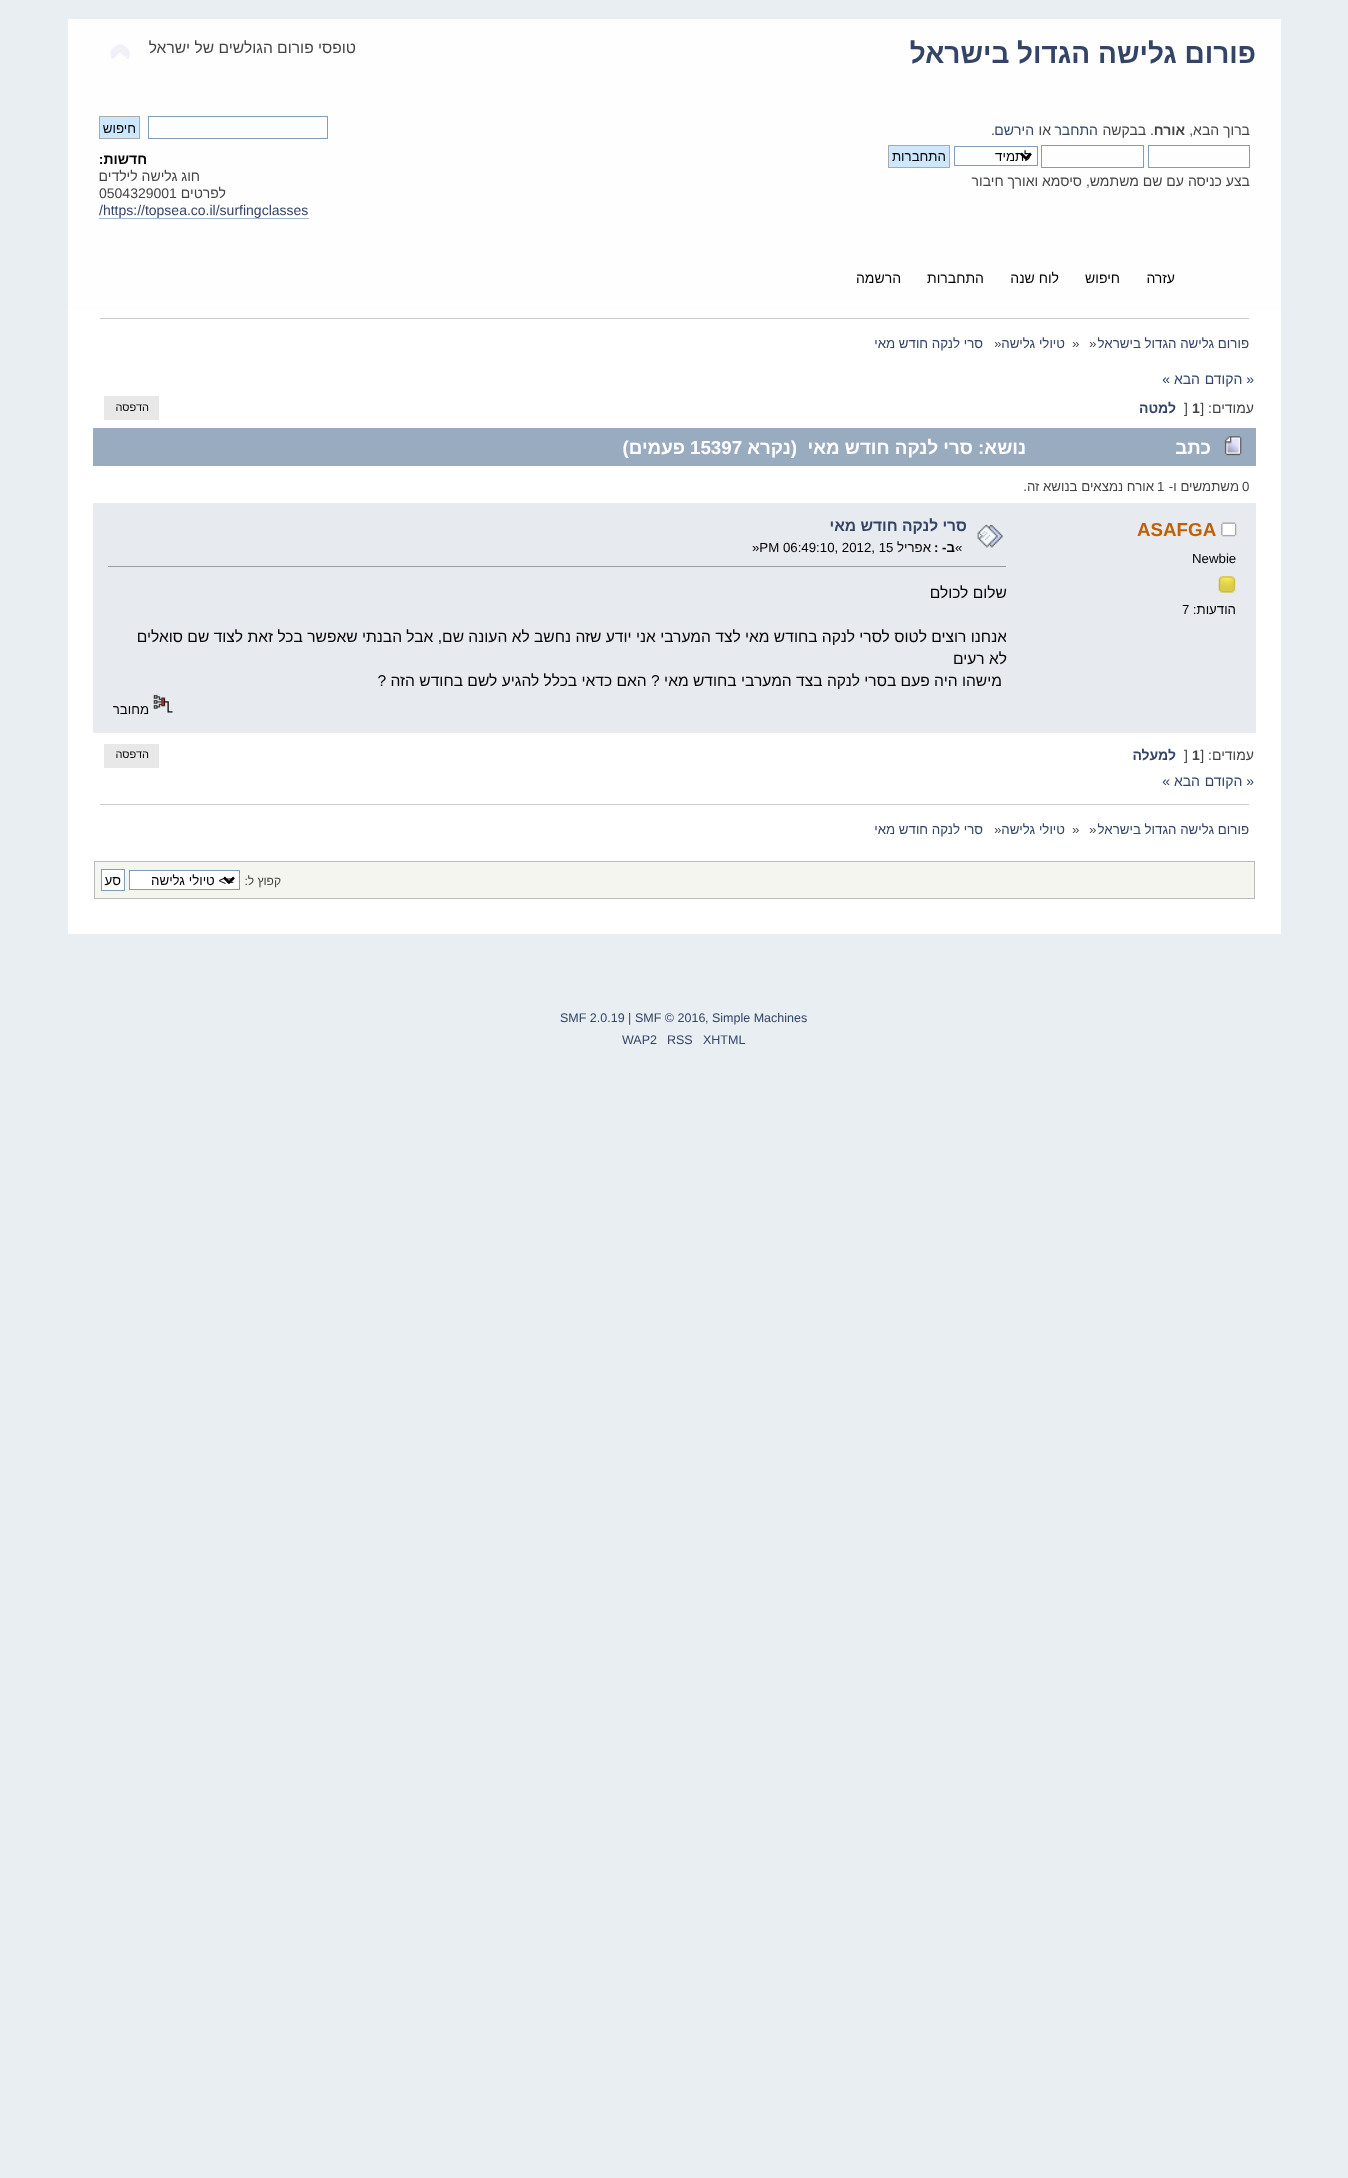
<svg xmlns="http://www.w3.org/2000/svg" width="1348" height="2178">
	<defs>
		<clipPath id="clip1"><rect x="93" y="565" width="913" height="129" /></clipPath>
	</defs>
	<rect width="100%" height="100%" fill="#E9EEF2" />
	<rect x="68" y="19" width="1213" height="291" fill="#FEFEFE" />
	<text x="1256" y="63" font-family="Liberation Sans" font-size="28" font-weight="700" direction="rtl" fill="#334466">פורום גלישה הגדול בישראל</text>
	<text x="356" y="53" font-family="Liberation Sans" font-size="15.6" direction="rtl" fill="#444444">טופסי פורום הגולשים של ישראל</text>
	<image x="110" y="44" width="20" height="15" href="assets/img1.png" />
	<text x="1250" y="135" font-family="Liberation Sans" font-size="14" direction="rtl" fill="#444444">ברוך הבא,</text>
	<text x="1185" y="135" font-family="Liberation Sans" font-size="14" font-weight="700" direction="rtl" fill="#444444">אורח</text>
	<text x="1154" y="135" font-family="Liberation Sans" font-size="14" direction="rtl" fill="#444444">. בבקשה</text>
	<text x="1098" y="135" font-family="Liberation Sans" font-size="14" direction="rtl" fill="#334466">התחבר</text>
	<text x="1051" y="135" font-family="Liberation Sans" font-size="14" direction="rtl" fill="#444444">או</text>
	<text x="1034" y="135" font-family="Liberation Sans" font-size="14" direction="rtl" fill="#334466">הירשם</text>
	<text x="991" y="135" font-family="Liberation Sans" font-size="14" fill="#444444">.</text>
	<rect x="1148.5" y="145.5" width="101" height="22" fill="none" stroke="#7F9DB9" />
	<rect x="1041.5" y="145.5" width="102" height="22" fill="none" stroke="#7F9DB9" />
	<rect x="954.5" y="146.5" width="83" height="19" fill="none" stroke="#7F9DB9" />
	<path d="M1021 153.5L1026 158.5L1031 153.5" fill="none" stroke="#000000" stroke-width="2.5" />
	<text x="1031" y="161" font-family="Liberation Sans" font-size="13.3" direction="rtl" fill="#000000">לתמיד</text>
	<rect x="888.5" y="145.5" width="61" height="22" fill="#CDE7FF" stroke="#AAAAAA" />
	<text x="946" y="161" font-family="Liberation Sans" font-size="13.3" direction="rtl" fill="#000000">התחברות</text>
	<text x="1250" y="186" font-family="Liberation Sans" font-size="14" direction="rtl" fill="#444444">בצע כניסה עם שם משתמש, סיסמא ואורך חיבור</text>
	<rect x="148.5" y="116.5" width="179" height="22" fill="none" stroke="#7F9DB9" />
	<rect x="99.5" y="116.5" width="40" height="22" fill="#CDE7FF" stroke="#AAAAAA" />
	<text x="136" y="133" font-family="Liberation Sans" font-size="13.3" direction="rtl" fill="#000000">חיפוש</text>
	<text x="147" y="164" font-family="Liberation Sans" font-size="14" font-weight="700" direction="rtl" fill="#000000">חדשות:</text>
	<g font-family="Liberation Sans" font-size="14" direction="rtl" fill="#444444">
		<text x="200" y="181">חוג גלישה לילדים</text>
		<text x="226" y="198">לפרטים</text>
	</g>
	<text x="99" y="198" font-family="Liberation Sans" font-size="14" fill="#444444">0504329001</text>
	<text x="99" y="215" font-family="Liberation Sans" font-size="14" fill="#334466">/https://topsea.co.il/surfingclasses</text>
	<rect x="99" y="218" width="210" height="1" fill="#A8B6CF" />
	<g font-family="Liberation Sans" font-size="14" direction="rtl" fill="#000000">
		<text x="1175" y="283">עזרה</text>
		<text x="1120" y="283">חיפוש</text>
		<text x="1059" y="283">לוח שנה</text>
		<text x="984" y="283">התחברות</text>
		<text x="901" y="283">הרשמה</text>
	</g>
	<rect x="68" y="310" width="1213" height="624" fill="#FFFFFF" />
	<rect x="100" y="318" width="1149" height="1" fill="#CCCCCC" />
	<text x="1249" y="348" font-family="Liberation Sans" font-size="13.3" direction="rtl" fill="#334466">פורום גלישה הגדול בישראל</text>
	<g font-family="Liberation Sans" font-size="13.3" fill="#444444">
		<text x="1089" y="348">»</text>
		<text x="1072" y="348">»</text>
	</g>
	<text x="1065" y="348" font-family="Liberation Sans" font-size="13.3" direction="rtl" fill="#334466">טיולי גלישה</text>
	<text x="994" y="348" font-family="Liberation Sans" font-size="13.3" fill="#444444">»</text>
	<text x="983" y="348" font-family="Liberation Sans" font-size="13.3" direction="rtl" fill="#334466">סרי לנקה חודש מאי</text>
	<g font-family="Liberation Sans" font-size="14" direction="rtl" fill="#334466">
		<text x="1254" y="384">« הקודם</text>
		<text x="1200" y="384">הבא »</text>
	</g>
	<text x="1254" y="413" font-family="Liberation Sans" font-size="14" direction="rtl" fill="#444444">עמודים: [</text>
	<text x="1192" y="413" font-family="Liberation Sans" font-size="14" font-weight="700" fill="#444444">1</text>
	<text x="1184" y="413" font-family="Liberation Sans" font-size="14" fill="#444444">]</text>
	<text x="1176" y="413" font-family="Liberation Sans" font-size="14" font-weight="700" direction="rtl" fill="#334466">למטה</text>
	<rect x="104" y="396" width="55" height="24" fill="#E8E8E8" />
	<text x="149" y="411" font-family="Liberation Sans" font-size="11" direction="rtl" fill="#000000">הדפסה</text>
	<rect x="93" y="428" width="1163" height="38" fill="#99ABBF" />
	<image x="1224" y="436" width="18" height="20" href="assets/img2.png" />
	<g font-family="Liberation Sans" font-size="18.75" font-weight="700" direction="rtl" fill="#FFFFFF">
		<text x="1211" y="454">כתב</text>
		<text x="1026" y="454">נושא: סרי לנקה חודש מאי</text>
		<text x="797" y="454">(נקרא</text>
	</g>
	<text x="690" y="454" font-family="Liberation Sans" font-size="18.75" font-weight="700" fill="#FFFFFF">15397</text>
	<text x="685" y="454" font-family="Liberation Sans" font-size="18.75" font-weight="700" direction="rtl" fill="#FFFFFF">פעמים)</text>
	<text x="1242" y="491" font-family="Liberation Sans" font-size="13.25" fill="#444444">0</text>
	<text x="1239" y="491" font-family="Liberation Sans" font-size="13.25" direction="rtl" fill="#444444">משתמשים ו-</text>
	<text x="1157" y="491" font-family="Liberation Sans" font-size="13.25" fill="#444444">1</text>
	<text x="1154" y="491" font-family="Liberation Sans" font-size="13.25" direction="rtl" fill="#444444">אורח נמצאים בנושא זה.</text>
	<rect x="93" y="503" width="1163" height="230" fill="#E7EAEF" />
	<image x="1221" y="522" width="16" height="15" href="assets/img3.png" />
	<text x="1137" y="536" font-family="Liberation Sans" font-size="18.75" font-weight="700" fill="#C06002">ASAFGA</text>
	<text x="1192" y="563" font-family="Liberation Sans" font-size="13.25" fill="#000000">Newbie</text>
	<image x="1218" y="576" width="18" height="17" href="assets/img4.png" />
	<text x="1236" y="614" font-family="Liberation Sans" font-size="13.25" direction="rtl" fill="#000000">הודעות:</text>
	<text x="1182" y="614" font-family="Liberation Sans" font-size="13.25" fill="#000000">7</text>
	<image x="977" y="524" width="26" height="24" href="assets/img5.png" />
	<text x="967" y="531" font-family="Liberation Sans" font-size="15.6" font-weight="700" direction="rtl" fill="#334466">סרי לנקה חודש מאי</text>
	<text x="955" y="552" font-family="Liberation Sans" font-size="13.25" fill="#000000">«</text>
	<text x="955" y="552" font-family="Liberation Sans" font-size="13.25" font-weight="700" direction="rtl" fill="#000000">ב- :</text>
	<text x="931" y="552" font-family="Liberation Sans" font-size="13.25" direction="rtl" fill="#000000">אפריל</text>
	<text x="752" y="552" font-family="Liberation Sans" font-size="13.25" fill="#000000">»PM 06:49:10, 2012, 15</text>
	<rect x="108" y="566" width="898" height="1" fill="#9999AA" />
	<text x="1007" y="598" font-family="Liberation Sans" font-size="15.6" direction="rtl" fill="#000000">שלום לכולם</text>
	<g clip-path="url(#clip1)">
		<text x="1007" y="642" font-family="Liberation Sans" font-size="15.6" direction="rtl" fill="#000000">אנחנו רוצים לטוס לסרי לנקה בחודש מאי לצד המערבי אני יודע שזה נחשב לא העונה שם, אבל הבנתי שאפשר בכל זאת לצוד שם סואלים</text>
	</g>
	<g font-family="Liberation Sans" font-size="15.6" direction="rtl" fill="#000000">
		<text x="1007" y="664">לא רעים</text>
		<text x="1002" y="686">מישהו היה פעם בסרי לנקה בצד המערבי בחודש מאי ? האם כדאי בכלל להגיע לשם בחודש הזה ?</text>
	</g>
	<image x="153" y="694" width="20" height="19" href="assets/img6.png" />
	<text x="149" y="714" font-family="Liberation Sans" font-size="13.25" direction="rtl" fill="#000000">מחובר</text>
	<text x="1254" y="760" font-family="Liberation Sans" font-size="14" direction="rtl" fill="#444444">עמודים: [</text>
	<text x="1192" y="760" font-family="Liberation Sans" font-size="14" font-weight="700" fill="#444444">1</text>
	<text x="1184" y="760" font-family="Liberation Sans" font-size="14" fill="#444444">]</text>
	<text x="1176" y="760" font-family="Liberation Sans" font-size="14" font-weight="700" direction="rtl" fill="#334466">למעלה</text>
	<rect x="104" y="744" width="55" height="24" fill="#E8E8E8" />
	<text x="149" y="758" font-family="Liberation Sans" font-size="11" direction="rtl" fill="#000000">הדפסה</text>
	<g font-family="Liberation Sans" font-size="14" direction="rtl" fill="#334466">
		<text x="1254" y="786">« הקודם</text>
		<text x="1200" y="786">הבא »</text>
	</g>
	<rect x="100" y="804" width="1149" height="1" fill="#CCCCCC" />
	<text x="1249" y="834" font-family="Liberation Sans" font-size="13.3" direction="rtl" fill="#334466">פורום גלישה הגדול בישראל</text>
	<g font-family="Liberation Sans" font-size="13.3" fill="#444444">
		<text x="1089" y="834">»</text>
		<text x="1072" y="834">»</text>
	</g>
	<text x="1065" y="834" font-family="Liberation Sans" font-size="13.3" direction="rtl" fill="#334466">טיולי גלישה</text>
	<text x="994" y="834" font-family="Liberation Sans" font-size="13.3" fill="#444444">»</text>
	<text x="983" y="834" font-family="Liberation Sans" font-size="13.3" direction="rtl" fill="#334466">סרי לנקה חודש מאי</text>
	<rect x="94.5" y="861.5" width="1160" height="37" fill="#F5F5F0" stroke="#BBBBBB" />
	<text x="281" y="885" font-family="Liberation Sans" font-size="12" direction="rtl" fill="#444444">קפוץ ל:</text>
	<rect x="129.5" y="870.5" width="110" height="19" fill="#FFFFFF" stroke="#7F9DB9" />
	<path d="M224 877.5L229 882.5L234 877.5" fill="none" stroke="#000000" stroke-width="2.5" />
	<text x="234" y="885" font-family="Liberation Sans" font-size="13.3" direction="rtl" fill="#000000">=&gt; טיולי גלישה</text>
	<rect x="101.5" y="869.5" width="23" height="21" fill="#FFFFFF" stroke="#7F9DB9" />
	<text x="121" y="885" font-family="Liberation Sans" font-size="13.3" direction="rtl" fill="#000000">סע</text>
	<text x="712" y="1022" font-family="Liberation Sans" font-size="12.5" fill="#334466">Simple Machines</text>
	<text x="705" y="1022" font-family="Liberation Sans" font-size="12.5" fill="#444444">,</text>
	<text x="635" y="1022" font-family="Liberation Sans" font-size="12.5" fill="#334466">SMF © 2016</text>
	<text x="628" y="1022" font-family="Liberation Sans" font-size="12.5" fill="#444444">|</text>
	<g font-family="Liberation Sans" font-size="12.5" fill="#334466">
		<text x="560" y="1022">SMF 2.0.19</text>
		<text x="703" y="1044">XHTML</text>
		<text x="667" y="1044">RSS</text>
		<text x="622" y="1044">WAP2</text>
	</g>
</svg>
